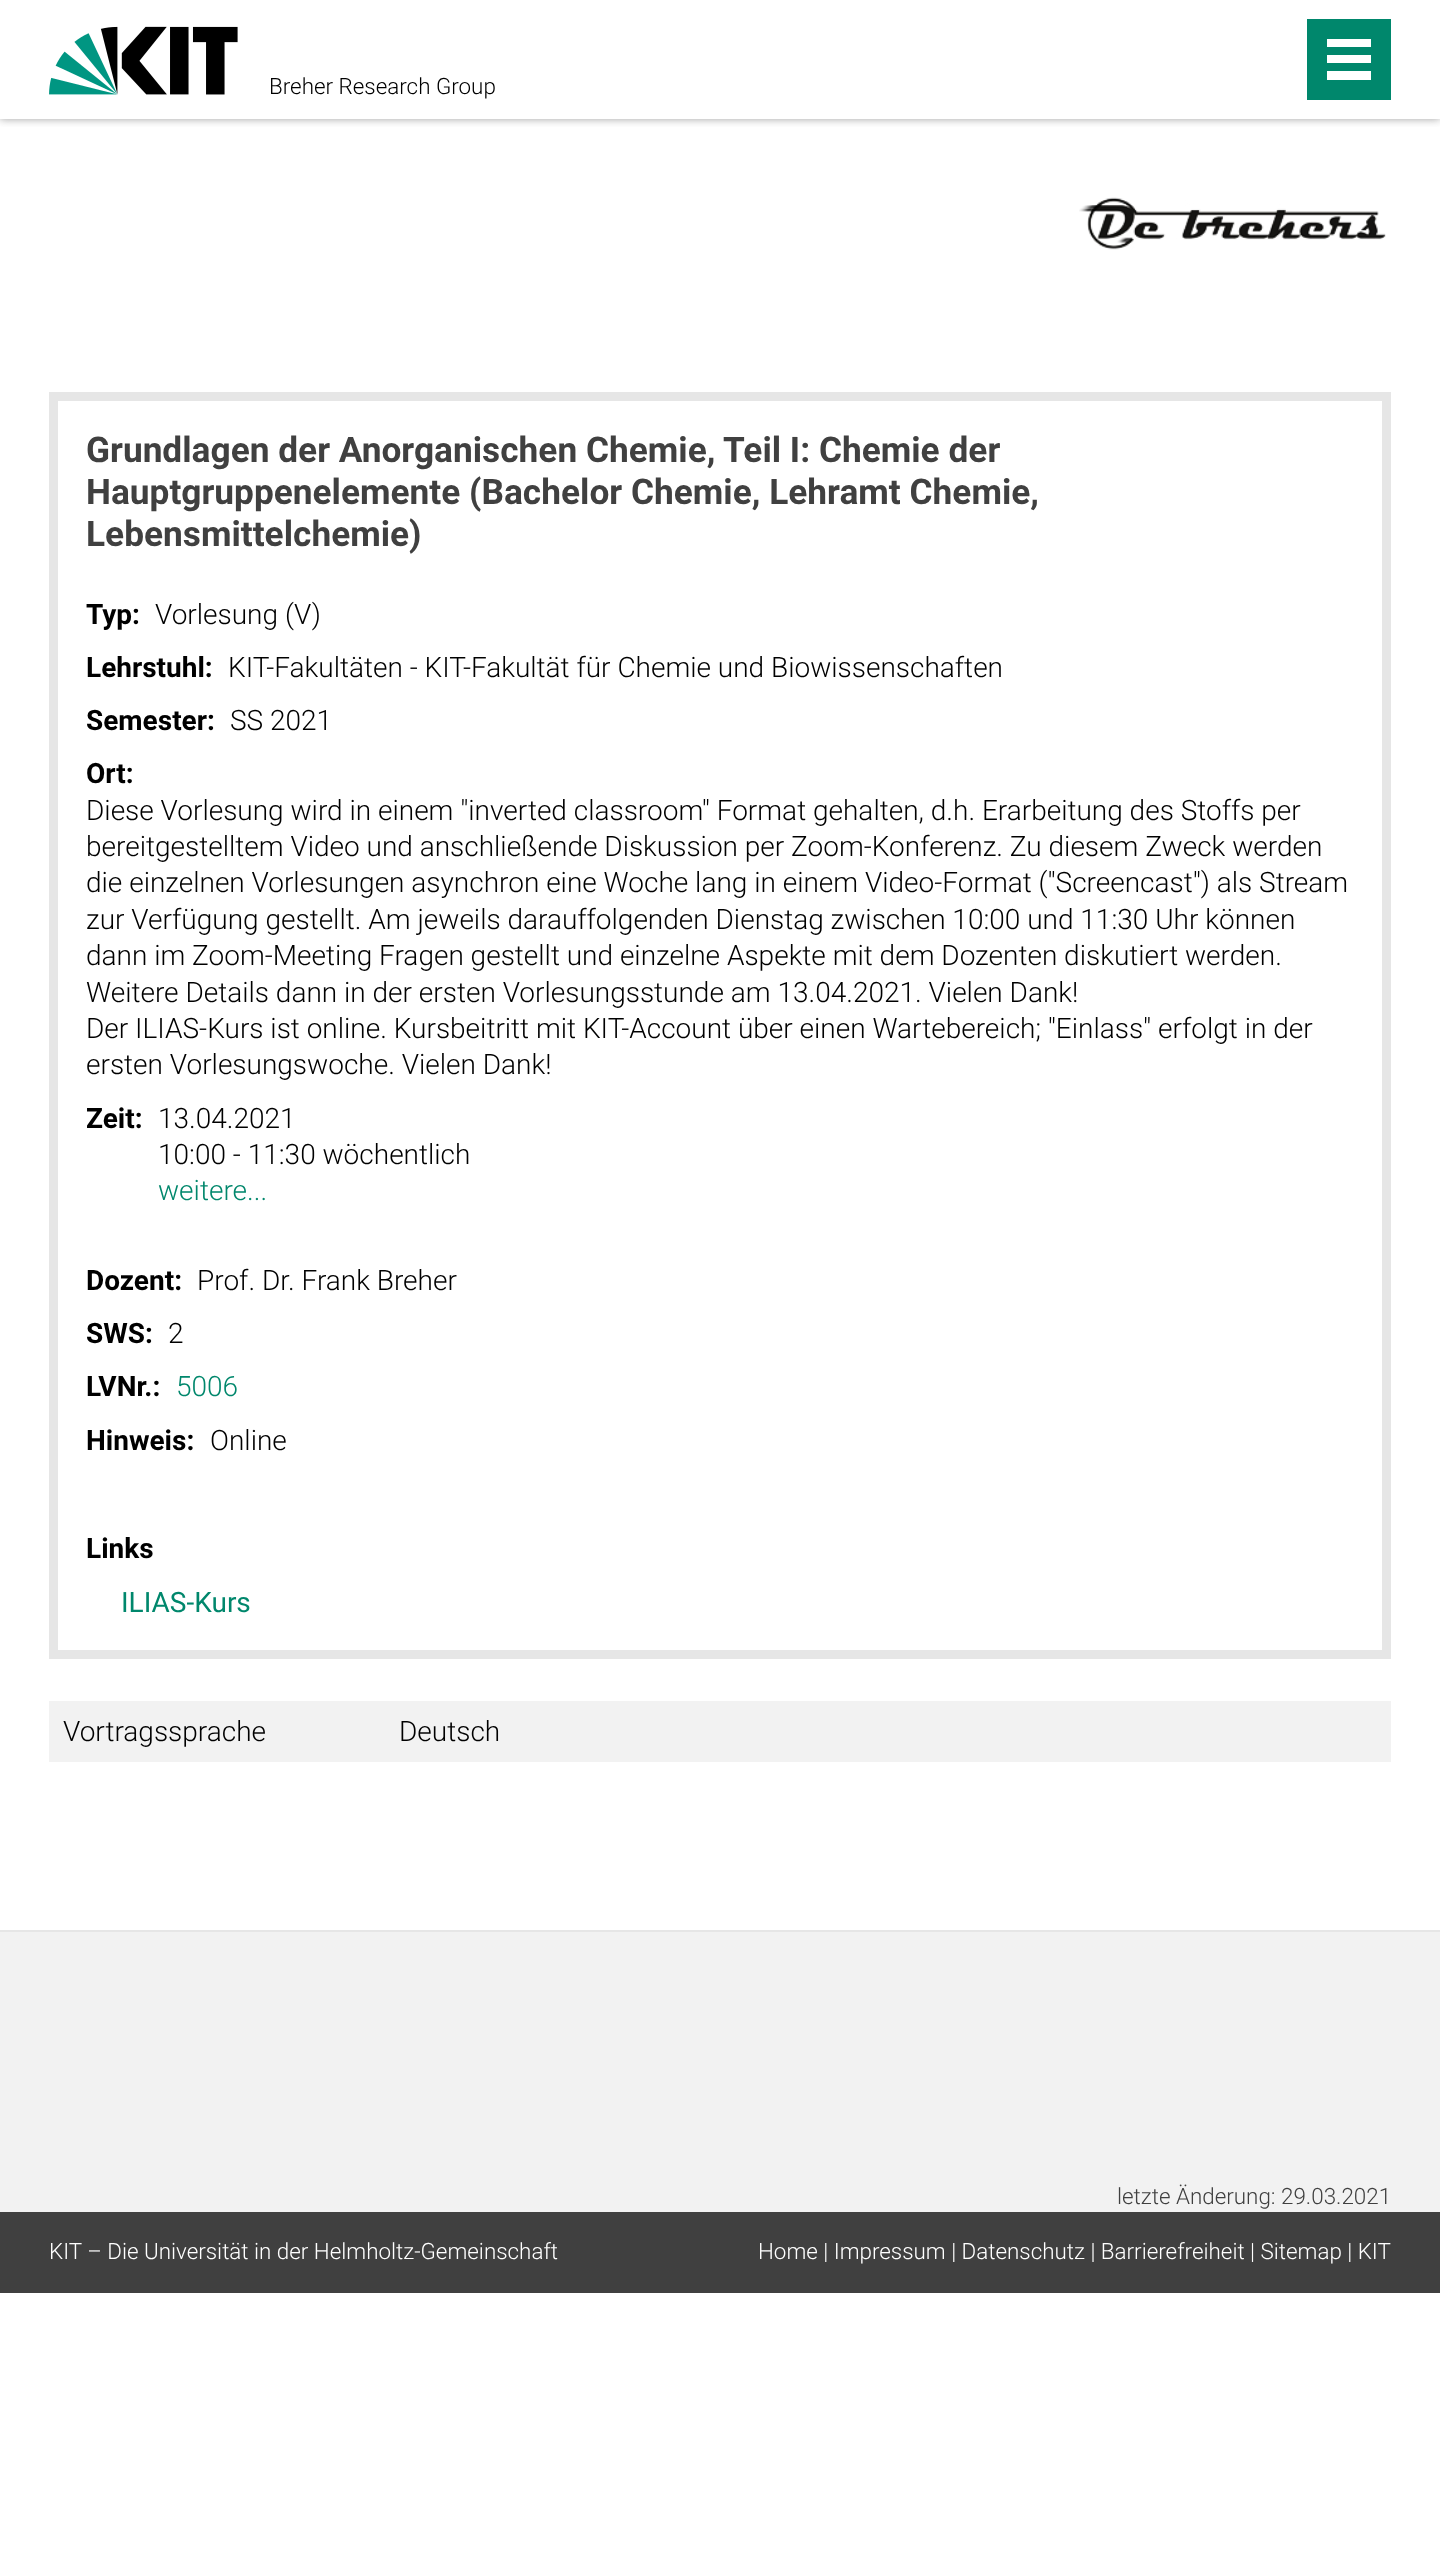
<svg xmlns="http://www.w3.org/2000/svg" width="1440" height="2573">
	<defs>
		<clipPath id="clip1"><rect x="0" y="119" width="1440" height="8" /></clipPath>
	</defs>
	<rect width="100%" height="100%" fill="#FFFFFF" />
	<g clip-path="url(#clip1)">
		<rect x="0" y="0" width="1440" height="119" fill="#404040" fill-opacity="0.5" filter="blur(4.5px)" />
	</g>
	<image x="49" y="26" width="189" height="69" href="assets/img1.png" />
	<text x="269" y="94" font-family="Roboto" font-size="22.4" font-weight="300" fill="#000000">Breher Research Group</text>
	<rect x="1307" y="19" width="84" height="81" fill="#00876C" />
	<rect x="1327" y="71" width="44" height="9" fill="#FFFFFF" />
	<rect x="1327" y="55" width="44" height="8" fill="#FFFFFF" />
	<rect x="1327" y="39" width="44" height="8" fill="#FFFFFF" />
	<image x="1079" y="197" width="307" height="53" href="assets/img2.png" />
	<rect x="53.5" y="396.5" width="1333" height="1258" fill="none" stroke="#E6E6E6" stroke-width="9" />
	<g font-family="Roboto" font-size="35.25" font-weight="700" fill="#404040">
		<text x="86" y="462">Grundlagen der Anorganischen Chemie, Teil I: Chemie der</text>
		<text x="86" y="504">Hauptgruppenelemente (Bachelor Chemie, Lehramt Chemie,</text>
		<text x="86" y="546">Lebensmittelchemie)</text>
	</g>
	<text x="86" y="624" font-family="Roboto" font-size="28" font-weight="700" fill="#000000">Typ:</text>
	<text x="155" y="624" font-family="Roboto" font-size="28" font-weight="300" fill="#000000">Vorlesung (V)</text>
	<text x="86" y="677" font-family="Roboto" font-size="28" font-weight="700" fill="#000000">Lehrstuhl:</text>
	<text x="228" y="677" font-family="Roboto" font-size="28" font-weight="300" fill="#000000">KIT-Fakultäten - KIT-Fakultät für Chemie und Biowissenschaften</text>
	<text x="86" y="730" font-family="Roboto" font-size="28" font-weight="700" fill="#000000">Semester:</text>
	<text x="230" y="730" font-family="Roboto" font-size="28" font-weight="300" fill="#000000">SS 2021</text>
	<text x="86" y="783" font-family="Roboto" font-size="28" font-weight="700" fill="#000000">Ort:</text>
	<g font-family="Roboto" font-size="28" font-weight="300" fill="#000000">
		<text x="86" y="820">Diese Vorlesung wird in einem "inverted classroom" Format gehalten, d.h. Erarbeitung des Stoffs per</text>
		<text x="86" y="856">bereitgestelltem Video und anschließende Diskussion per Zoom-Konferenz. Zu diesem Zweck werden</text>
		<text x="86" y="892">die einzelnen Vorlesungen asynchron eine Woche lang in einem Video-Format ("Screencast") als Stream</text>
		<text x="86" y="929">zur Verfügung gestellt. Am jeweils darauffolgenden Dienstag zwischen 10:00 und 11:30 Uhr können</text>
		<text x="86" y="965">dann im Zoom-Meeting Fragen gestellt und einzelne Aspekte mit dem Dozenten diskutiert werden.</text>
		<text x="86" y="1002">Weitere Details dann in der ersten Vorlesungsstunde am 13.04.2021. Vielen Dank!</text>
		<text x="86" y="1038">Der ILIAS-Kurs ist online. Kursbeitritt mit KIT-Account über einen Wartebereich; "Einlass" erfolgt in der</text>
		<text x="86" y="1074">ersten Vorlesungswoche. Vielen Dank!</text>
	</g>
	<text x="86" y="1128" font-family="Roboto" font-size="28" font-weight="700" fill="#000000">Zeit:</text>
	<g font-family="Roboto" font-size="28" font-weight="300" fill="#000000">
		<text x="158" y="1128">13.04.2021</text>
		<text x="158" y="1164">10:00 - 11:30 wöchentlich</text>
	</g>
	<text x="158" y="1200" font-family="Roboto" font-size="28" font-weight="300" fill="#00876C">weitere...</text>
	<text x="86" y="1290" font-family="Roboto" font-size="28" font-weight="700" fill="#000000">Dozent:</text>
	<text x="197" y="1290" font-family="Roboto" font-size="28" font-weight="300" fill="#000000">Prof. Dr. Frank Breher</text>
	<text x="86" y="1343" font-family="Roboto" font-size="28" font-weight="700" fill="#000000">SWS:</text>
	<text x="168" y="1343" font-family="Roboto" font-size="28" font-weight="300" fill="#000000">2</text>
	<text x="86" y="1396" font-family="Roboto" font-size="28" font-weight="700" fill="#000000">LVNr.:</text>
	<text x="176" y="1396" font-family="Roboto" font-size="28" font-weight="300" fill="#00876C">5006</text>
	<text x="86" y="1450" font-family="Roboto" font-size="28" font-weight="700" fill="#000000">Hinweis:</text>
	<text x="210" y="1450" font-family="Roboto" font-size="28" font-weight="300" fill="#000000">Online</text>
	<text x="86" y="1558" font-family="Roboto" font-size="28" font-weight="700" fill="#000000">Links</text>
	<text x="121" y="1612" font-family="Roboto" font-size="28" fill="#00876C">ILIAS-Kurs</text>
	<rect x="49" y="1701" width="1342" height="61" fill="#F2F2F2" />
	<g font-family="Roboto" font-size="28" font-weight="300" fill="#000000">
		<text x="63" y="1741">Vortragssprache</text>
		<text x="399" y="1741">Deutsch</text>
	</g>
	<rect x="0" y="1932" width="1440" height="280" fill="#F2F2F2" />
	<rect x="0" y="1930" width="1440" height="2" fill="#E6E6E6" />
	<text x="1117" y="2204" font-family="Roboto" font-size="22.4" font-weight="300" fill="#404040">letzte Änderung: 29.03.2021</text>
	<rect x="0" y="2212" width="1440" height="81" fill="#404040" />
	<g font-family="Roboto" font-size="22.4" font-weight="300" fill="#FFFFFF">
		<text x="49" y="2259">KIT – Die Universität in der Helmholtz-Gemeinschaft</text>
		<text x="758" y="2259">Home | Impressum | Datenschutz | Barrierefreiheit | Sitemap | KIT</text>
	</g>
</svg>
